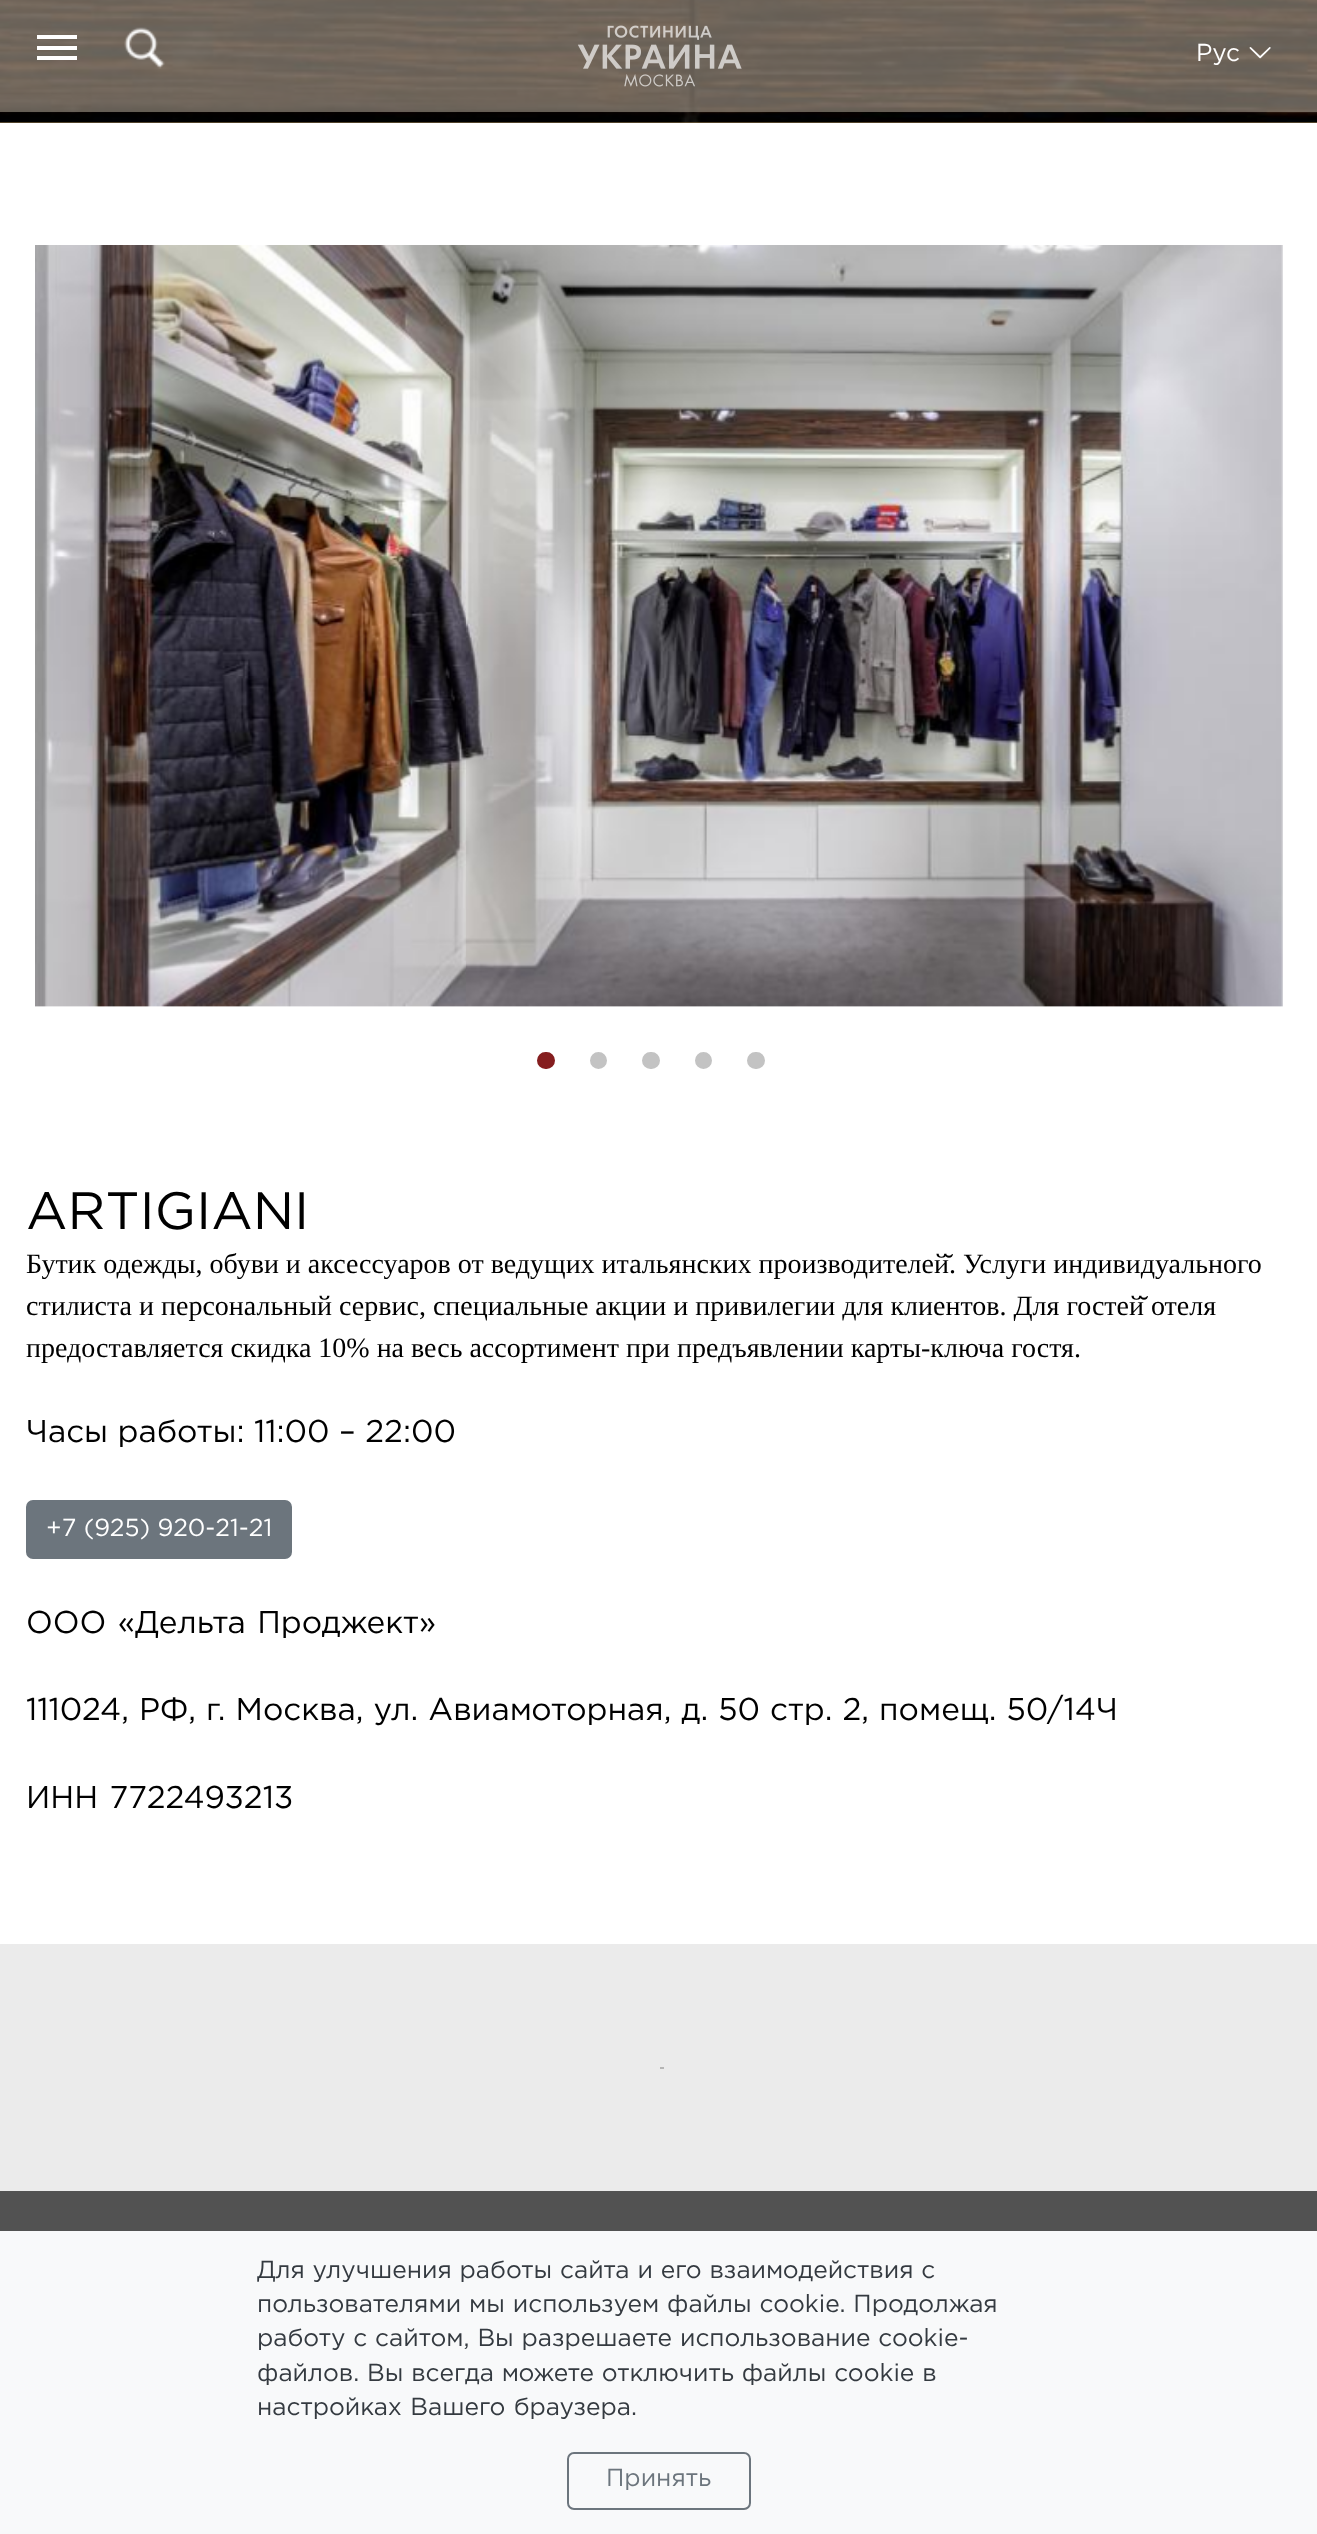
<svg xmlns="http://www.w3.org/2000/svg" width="1317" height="2534">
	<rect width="100%" height="100%" fill="#FFFFFF" />
	<rect x="0" y="122" width="1317" height="1" fill="#A48755" />
	<image x="0" y="0" width="1317" height="123" href="assets/img2.png" />
	<rect x="37" y="46" width="40" height="4" fill="#FFFFFF" />
	<rect x="37" y="35" width="40" height="4" fill="#FFFFFF" />
	<rect x="37" y="56" width="40" height="4" fill="#FFFFFF" />
	<image x="578" y="25" width="164" height="62" href="assets/img1.png" />
	<image x="124" y="27" width="41" height="42" href="assets/img3.png" />
	<text x="1196" y="61" font-family="Gotham" font-size="24.5" fill="#FFFFFF">Рус</text>
	<image x="1249" y="47" width="22" height="12" href="assets/img4.png" />
	<image x="35" y="245" width="1248" height="762" href="assets/img5.png" />
	<rect x="538" y="1053" width="16" height="15" rx="7.5" fill="#851E1F" stroke="#851E1F" stroke-width="2" />
	<circle cx="598.5" cy="1060.5" r="7.5" fill="#C3C3C3" stroke="#C3C3C3" stroke-width="2" />
	<rect x="643" y="1053" width="16" height="15" rx="7.5" fill="#C3C3C3" stroke="#C3C3C3" stroke-width="2" />
	<circle cx="703.5" cy="1060.5" r="7.5" fill="#C3C3C3" stroke="#C3C3C3" stroke-width="2" />
	<rect x="748" y="1053" width="16" height="15" rx="7.5" fill="#C3C3C3" stroke="#C3C3C3" stroke-width="2" />
	<text x="26" y="1229" font-family="Gotham" font-size="52.5" fill="#000000">ARTIGIANI</text>
	<g font-family="Liberation Serif" font-size="28" fill="#000000">
		<text x="26" y="1273">Бутик одежды, обуви и аксессуаров от ведущих итальянских производителей̆. Услуги индивидуального</text>
		<text x="26" y="1315">стилиста и персональный сервис, специальные акции и привилегии для клиентов. Для гостей̆ отеля</text>
		<text x="26" y="1357">предоставляется скидка 10% на весь ассортимент при предъявлении карты-ключа гостя.</text>
	</g>
	<text x="26" y="1442" font-family="Gotham" font-size="31.5" fill="#000000">Часы работы: 11:00 – 22:00</text>
	<rect x="27" y="1501" width="264" height="57" rx="6" fill="#6C757D" stroke="#6C757D" stroke-width="2" />
	<text x="46" y="1536" font-family="Gotham" font-size="24.5" fill="#FFFFFF">+7 (925) 920-21-21</text>
	<g font-family="Gotham" font-size="31.5" fill="#000000">
		<text x="26" y="1633" word-spacing="2">ООО «Дельта Проджект»</text>
		<text x="26" y="1720" word-spacing="0.6">111024, РФ, г. Москва, ул. Авиамоторная, д. 50 стр. 2, помещ. 50/14Ч</text>
		<text x="26" y="1808" word-spacing="2">ИНН 7722493213</text>
	</g>
	<rect x="0" y="1944" width="1317" height="247" fill="#EBEBEB" />
	<rect x="660" y="2067" width="4" height="2" fill="#B5B5B5" />
	<rect x="0" y="2191" width="1317" height="40" fill="#525252" />
	<rect x="0" y="2231" width="1317" height="303" fill="#F8F9FA" />
	<g font-family="Gotham" font-size="24.5" fill="#343A40">
		<text x="257" y="2278" word-spacing="0.5">Для улучшения работы сайта и его взаимодействия с</text>
		<text x="257" y="2312" word-spacing="0.5">пользователями мы используем файлы cookie. Продолжая</text>
		<text x="257" y="2346" word-spacing="0.5">работу с сайтом, Вы разрешаете использование cookie-</text>
		<text x="257" y="2381" word-spacing="0.5">файлов. Вы всегда можете отключить файлы cookie в</text>
		<text x="257" y="2415" word-spacing="1">настройках Вашего браузера.</text>
	</g>
	<rect x="568" y="2453" width="182" height="56" rx="6" fill="none" stroke="#6C757D" stroke-width="2" />
	<text x="606" y="2486" font-family="Gotham" font-size="24.5" fill="#6C757D">Принять</text>
</svg>
